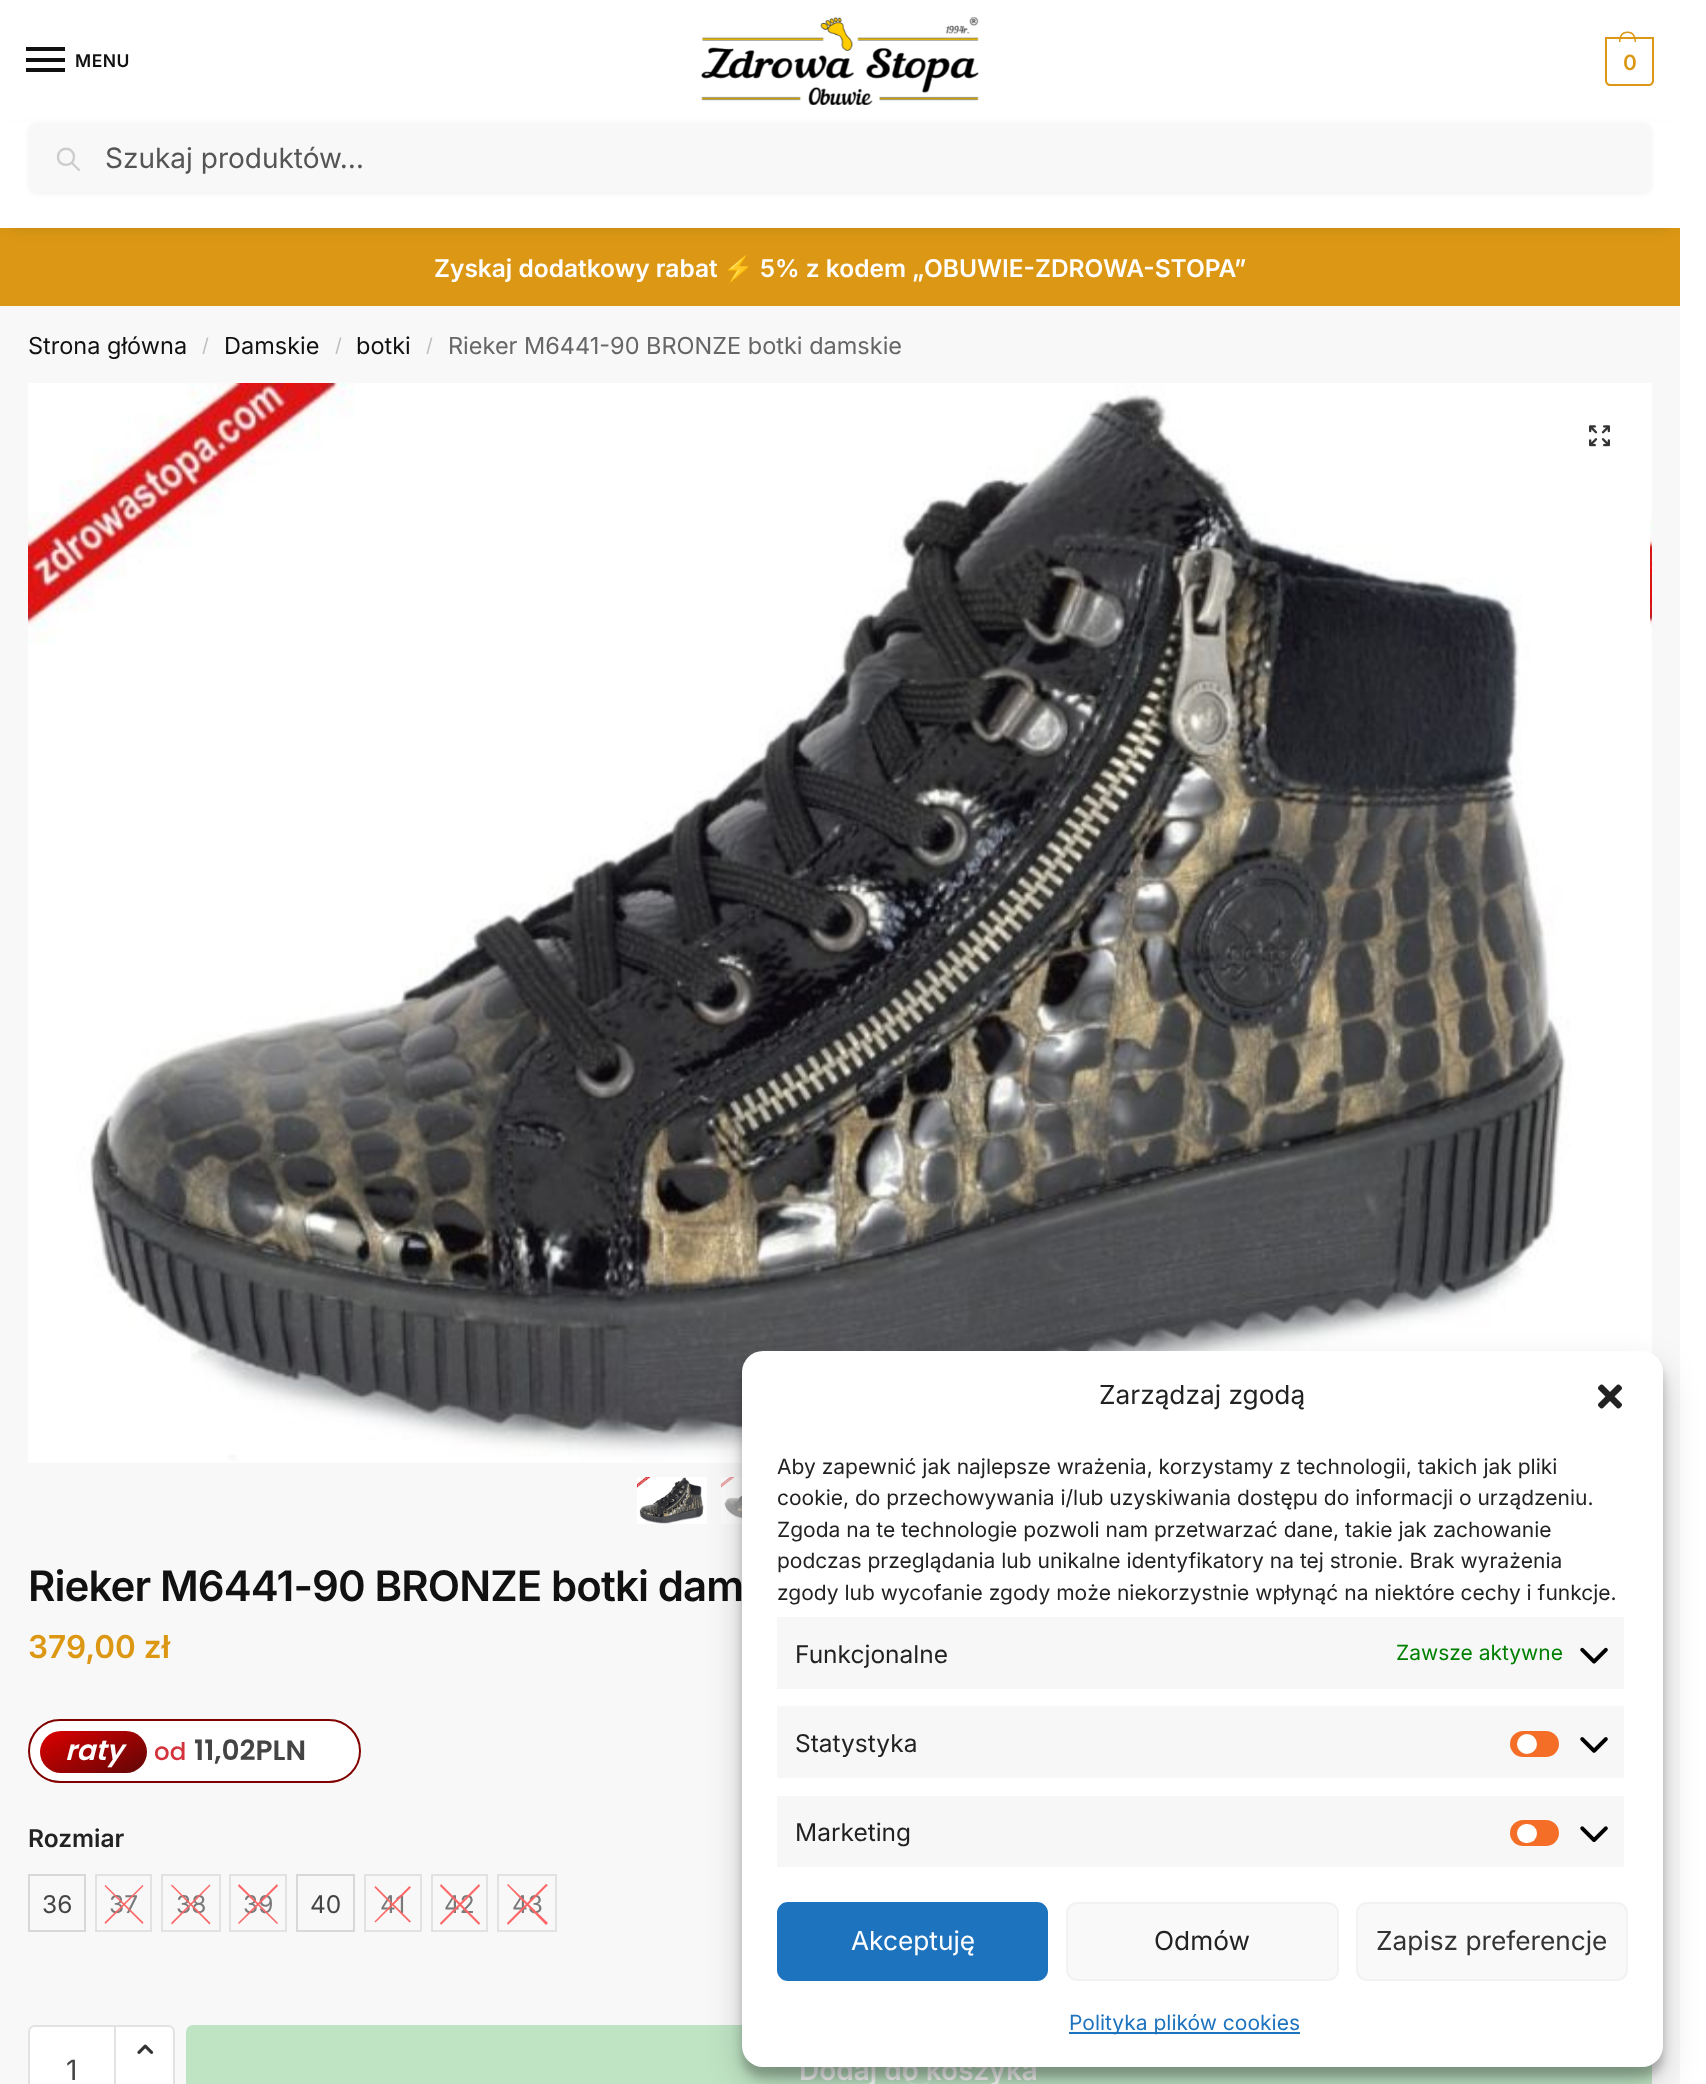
<svg xmlns="http://www.w3.org/2000/svg" width="1706" height="2084">
	<defs>
		<linearGradient id="g1" gradientUnits="userSpaceOnUse" x1="74" y1="1713" x2="113" y2="1790"><stop offset="0" stop-color="#DF0000" /><stop offset="1" stop-color="#600606" /></linearGradient>
	</defs>
	<rect width="100%" height="100%" fill="#DC9814" />
	<rect x="0" y="0" width="1680" height="123" fill="#FFFFFF" />
	<rect x="26" y="47" width="39" height="4" fill="#111111" />
	<rect x="26" y="58" width="39" height="4" fill="#111111" />
	<text x="75" y="67" font-family="Inter" font-size="17.5" font-weight="600" letter-spacing="0.5" fill="#111111">MENU</text>
	<rect x="26" y="68" width="39" height="4" fill="#111111" />
	<image x="701" y="17" width="278" height="88" href="assets/img1.png" />
	<path d="M1606 38H1653V81C1653 83 1651 85 1649 85H1610C1608 85 1606 83 1606 81Z" fill="none" stroke="#DC9814" stroke-width="2" />
	<path d="M1627.5 31.5C1634 31.5 1636 36.5 1636 42H1619C1619 36.5 1621 31.5 1627.5 31.5ZM1627.5 33C1633 33 1634.5 37.5 1634.5 42H1620.5C1620.5 37.5 1622 33 1627.5 33Z" fill="#DC9814" fill-rule="evenodd" />
	<text x="1623" y="70" font-family="Inter" font-size="21" font-weight="600" letter-spacing="-1" fill="#DC9814">0</text>
	<rect x="9" y="137" width="1662" height="87" fill="#000000" fill-opacity="0.18" filter="blur(9px)" />
	<rect x="0" y="123" width="1680" height="105" fill="#FFFFFF" />
	<rect x="28" y="124" width="1624" height="70" rx="9" fill="#000000" fill-opacity="0.05" filter="blur(2px)" />
	<rect x="28" y="123" width="1624" height="70" rx="9" fill="#F8F8F8" />
	<path d="M79 170L72 163M74 157C74 167.5 58 167.5 58 157C58 146 74 146 74 157Z" fill="none" stroke="#CCCCCC" stroke-width="2.3" stroke-linecap="round" stroke-linejoin="round" />
	<text x="105" y="168" font-family="Inter" font-size="28" fill="#555555">Szukaj produktów…</text>
	<rect x="1680" y="0" width="26" height="2084" fill="#FFFFFF" />
	<text x="434" y="277" font-family="Inter" font-size="24.5" font-weight="600" fill="#FFFFFF">Zyskaj dodatkowy rabat</text>
	<text x="723" y="277" font-family="Noto Color Emoji" font-size="24.5" font-weight="700" fill="#FFFFFF">⚡</text>
	<text x="760" y="277" font-family="Inter" font-size="24.5" font-weight="600" fill="#FFFFFF">5% z kodem „OBUWIE-ZDROWA-STOPA”</text>
	<rect x="0" y="306" width="1680" height="1778" fill="#F8F8F8" />
	<text x="28" y="354" font-family="Inter" font-size="23.5" fill="#111111">Strona główna</text>
	<text x="202" y="352" font-family="Inter" font-size="19" fill="#BEBEBE">/</text>
	<text x="224" y="354" font-family="Inter" font-size="23.5" fill="#111111">Damskie</text>
	<text x="335" y="352" font-family="Inter" font-size="19" fill="#BEBEBE">/</text>
	<text x="356" y="354" font-family="Inter" font-size="23.5" fill="#111111">botki</text>
	<text x="426" y="352" font-family="Inter" font-size="19" fill="#BEBEBE">/</text>
	<text x="448" y="354" font-family="Inter" font-size="23.5" fill="#666666">Rieker M6441-90 BRONZE botki damskie</text>
	<image x="28" y="383" width="1624" height="1080" href="assets/img2.png" />
	<image x="1650" y="513" width="2" height="130" href="assets/img3.png" />
	<image x="1589" y="425" width="21" height="22" href="assets/img4.png" />
	<image x="637" y="1477" width="70" height="47" href="assets/img5.png" />
	<image x="721" y="1477" width="21" height="47" href="assets/img6.png" />
	<text x="28" y="1601" font-family="Inter" font-size="42" font-weight="600" letter-spacing="-0.9" fill="#111111">Rieker M6441-90 BRONZE botki dam</text>
	<text x="28" y="1658" font-family="Inter" font-size="31.5" font-weight="600" fill="#DC9814">379,00 zł</text>
	<rect x="29" y="1720" width="331" height="62" rx="31" fill="#FFFFFF" stroke="#810000" stroke-width="2" />
	<rect x="40" y="1731" width="107" height="42" rx="21" fill="url(#g1)" />
	<text x="65" y="1760" font-family="Poppins" font-size="28" font-weight="600" font-style="italic" fill="#FFFFFF">raty</text>
	<text x="154" y="1760" font-family="Poppins" font-size="24.5" font-weight="500" fill="#D3343B">od</text>
	<text x="194" y="1760" font-family="Poppins" font-size="28" font-weight="600" fill="#444444">11,02PLN</text>
	<text x="28" y="1847" font-family="Inter" font-size="24.5" font-weight="600" fill="#222222">Rozmiar</text>
	<rect x="29" y="1875" width="56" height="56" fill="none" stroke="#D8D8D8" stroke-width="2" />
	<text x="42" y="1913" font-family="Inter" font-size="24.5" fill="#444444">36</text>
	<rect x="96" y="1875" width="55" height="56" fill="none" stroke="#E2E2E2" stroke-width="2" />
	<text x="109" y="1913" font-family="Inter" font-size="24.5" fill="#7A7A7A">37</text>
	<path d="M105.5 1885L143.5 1922.5L142.5 1924L104.5 1886Z" fill="#FC6666" />
	<path d="M104.5 1922.5L142.5 1885L143.5 1886L105.5 1924Z" fill="#FC6666" />
	<rect x="162" y="1875" width="58" height="56" fill="none" stroke="#E2E2E2" stroke-width="2" />
	<text x="176" y="1913" font-family="Inter" font-size="24.5" fill="#7A7A7A">38</text>
	<path d="M172 1884.5L210.5 1923L209.5 1924.5L171 1885.5Z" fill="#FC6666" />
	<path d="M171 1923L209.5 1884.5L210.5 1885.5L172 1924.5Z" fill="#FC6666" />
	<rect x="230" y="1875" width="56" height="56" fill="none" stroke="#E2E2E2" stroke-width="2" />
	<text x="243" y="1913" font-family="Inter" font-size="24.5" fill="#7A7A7A">39</text>
	<path d="M239 1884L278 1923L277 1924L238 1886Z" fill="#FC6666" />
	<path d="M238 1923L277 1884L278 1886L239 1924Z" fill="#FC6666" />
	<rect x="297" y="1875" width="57" height="56" fill="none" stroke="#D8D8D8" stroke-width="2" />
	<text x="310" y="1913" font-family="Inter" font-size="24.5" fill="#444444">40</text>
	<rect x="365" y="1875" width="56" height="56" fill="none" stroke="#E2E2E2" stroke-width="2" />
	<text x="380" y="1913" font-family="Inter" font-size="24.5" fill="#7A7A7A">41</text>
	<path d="M375.5 1886L411 1921.5L409.5 1922.5L374.5 1887.5Z" fill="#FC6666" />
	<path d="M374.5 1921.5L409.5 1886L411 1887.5L375.5 1922.5Z" fill="#FC6666" />
	<rect x="432" y="1875" width="55" height="56" fill="none" stroke="#E2E2E2" stroke-width="2" />
	<text x="444" y="1913" font-family="Inter" font-size="24.5" fill="#7A7A7A">42</text>
	<path d="M441 1884L480 1923L479 1925L440 1886Z" fill="#FC6666" />
	<path d="M440 1923L479 1884L480 1886L441 1925Z" fill="#FC6666" />
	<rect x="498" y="1875" width="58" height="56" fill="none" stroke="#E2E2E2" stroke-width="2" />
	<text x="512" y="1913" font-family="Inter" font-size="24.5" fill="#7A7A7A">43</text>
	<path d="M508 1884L548 1923L546 1925L507 1885Z" fill="#FC6666" />
	<path d="M507 1923L546 1884L548 1885L508 1925Z" fill="#FC6666" />
	<path d="M35 2026H115V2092H35C31.5 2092 29 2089.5 29 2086V2032C29 2028.5 31.5 2026 35 2026Z" fill="#FFFFFF" stroke="#E2E2E2" stroke-width="2" />
	<text x="66" y="2080" font-family="Inter" font-size="28" fill="#444444">1</text>
	<path d="M115 2026H168C171.5 2026 174 2028.5 174 2032V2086C174 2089.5 171.5 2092 168 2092H115Z" fill="#FFFFFF" stroke="#E2E2E2" stroke-width="2" />
	<image x="137" y="2044" width="17" height="10" href="assets/img7.png" />
	<rect x="186" y="2025" width="1466" height="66" rx="7" fill="#BFE4C4" />
	<text x="799" y="2080" font-family="Inter" font-size="28" font-weight="600" fill="#FFFFFF">Dodaj do koszyka</text>
	<path d="M908 2059.5C911.5 2056 917 2054.5 921.5 2055.5C939 2059 936.5 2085 919 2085C915 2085 911 2083.5 908 2081" fill="none" stroke="#F8F8F8" stroke-opacity="0.3" stroke-width="1.8" />
	<path d="M908 2081C902.5 2075 902.5 2065.5 908 2059.5" fill="none" stroke="#F8F8F8" stroke-width="1.8" />
	<rect x="742" y="1362" width="921" height="715" rx="21" fill="#000000" fill-opacity="0.23" filter="blur(5px)" />
	<rect x="742" y="1369" width="921" height="715" rx="21" fill="#000000" fill-opacity="0.19" filter="blur(17.5px)" />
	<rect x="742" y="1351" width="921" height="716" rx="21" fill="#FFFFFF" />
	<text x="1099" y="1404" font-family="Inter" font-size="26.25" fill="#222222">Zarządzaj zgodą</text>
	<image x="1598" y="1384" width="24" height="25" href="assets/img8.png" />
	<g font-family="Inter" font-size="21" fill="#222222">
		<text x="777" y="1474">Aby zapewnić jak najlepsze wrażenia, korzystamy z technologii, takich jak pliki</text>
		<text x="777" y="1505">cookie, do przechowywania i/lub uzyskiwania dostępu do informacji o urządzeniu.</text>
		<text x="777" y="1537">Zgoda na te technologie pozwoli nam przetwarzać dane, takie jak zachowanie</text>
		<text x="777" y="1568">podczas przeglądania lub unikalne identyfikatory na tej stronie. Brak wyrażenia</text>
		<text x="777" y="1600">zgody lub wycofanie zgody może niekorzystnie wpłynąć na niektóre cechy i funkcje.</text>
	</g>
	<rect x="777" y="1617" width="847" height="72" fill="#F7F7F7" />
	<text x="795" y="1663" font-family="Inter" font-size="24.5" fill="#222222">Funkcjonalne</text>
	<text x="1396" y="1660" font-family="Inter" font-size="21" fill="#008000">Zawsze aktywne</text>
	<image x="1580" y="1647" width="28" height="17" href="assets/img9.png" />
	<rect x="777" y="1706" width="847" height="72" fill="#F7F7F7" />
	<text x="795" y="1752" font-family="Inter" font-size="24.5" fill="#222222">Statystyka</text>
	<rect x="1510" y="1731" width="49" height="26" rx="13" fill="#F56E28" />
	<circle cx="1527" cy="1744" r="10" fill="#FFFFFF" />
	<image x="1580" y="1737" width="28" height="16" href="assets/img10.png" />
	<rect x="777" y="1796" width="847" height="71" fill="#F7F7F7" />
	<text x="795" y="1841" font-family="Inter" font-size="24.5" fill="#222222">Marketing</text>
	<rect x="1510" y="1820" width="49" height="26" rx="13" fill="#F56E28" />
	<rect x="1517" y="1824" width="20" height="19" rx="9.5" fill="#FFFFFF" />
	<image x="1580" y="1826" width="28" height="17" href="assets/img11.png" />
	<rect x="778" y="1903" width="269" height="77" rx="10" fill="#1E73BE" stroke="#1E73BE" stroke-width="2" />
	<text x="851" y="1950" font-family="Inter" font-size="26.25" fill="#FFFFFF">Akceptuję</text>
	<rect x="1067" y="1903" width="271" height="77" rx="10" fill="#F9F9F9" stroke="#F2F2F2" stroke-width="2" />
	<text x="1154" y="1950" font-family="Inter" font-size="26.25" fill="#222222">Odmów</text>
	<rect x="1357" y="1903" width="270" height="77" rx="10" fill="#F9F9F9" stroke="#F2F2F2" stroke-width="2" />
	<text x="1376" y="1950" font-family="Inter" font-size="26.25" fill="#333333">Zapisz preferencje</text>
	<rect x="1069" y="2032" width="231" height="2" fill="#1E73BE" />
	<text x="1069" y="2030" font-family="Inter" font-size="21" fill="#1E73BE">Polityka plików cookies</text>
</svg>
